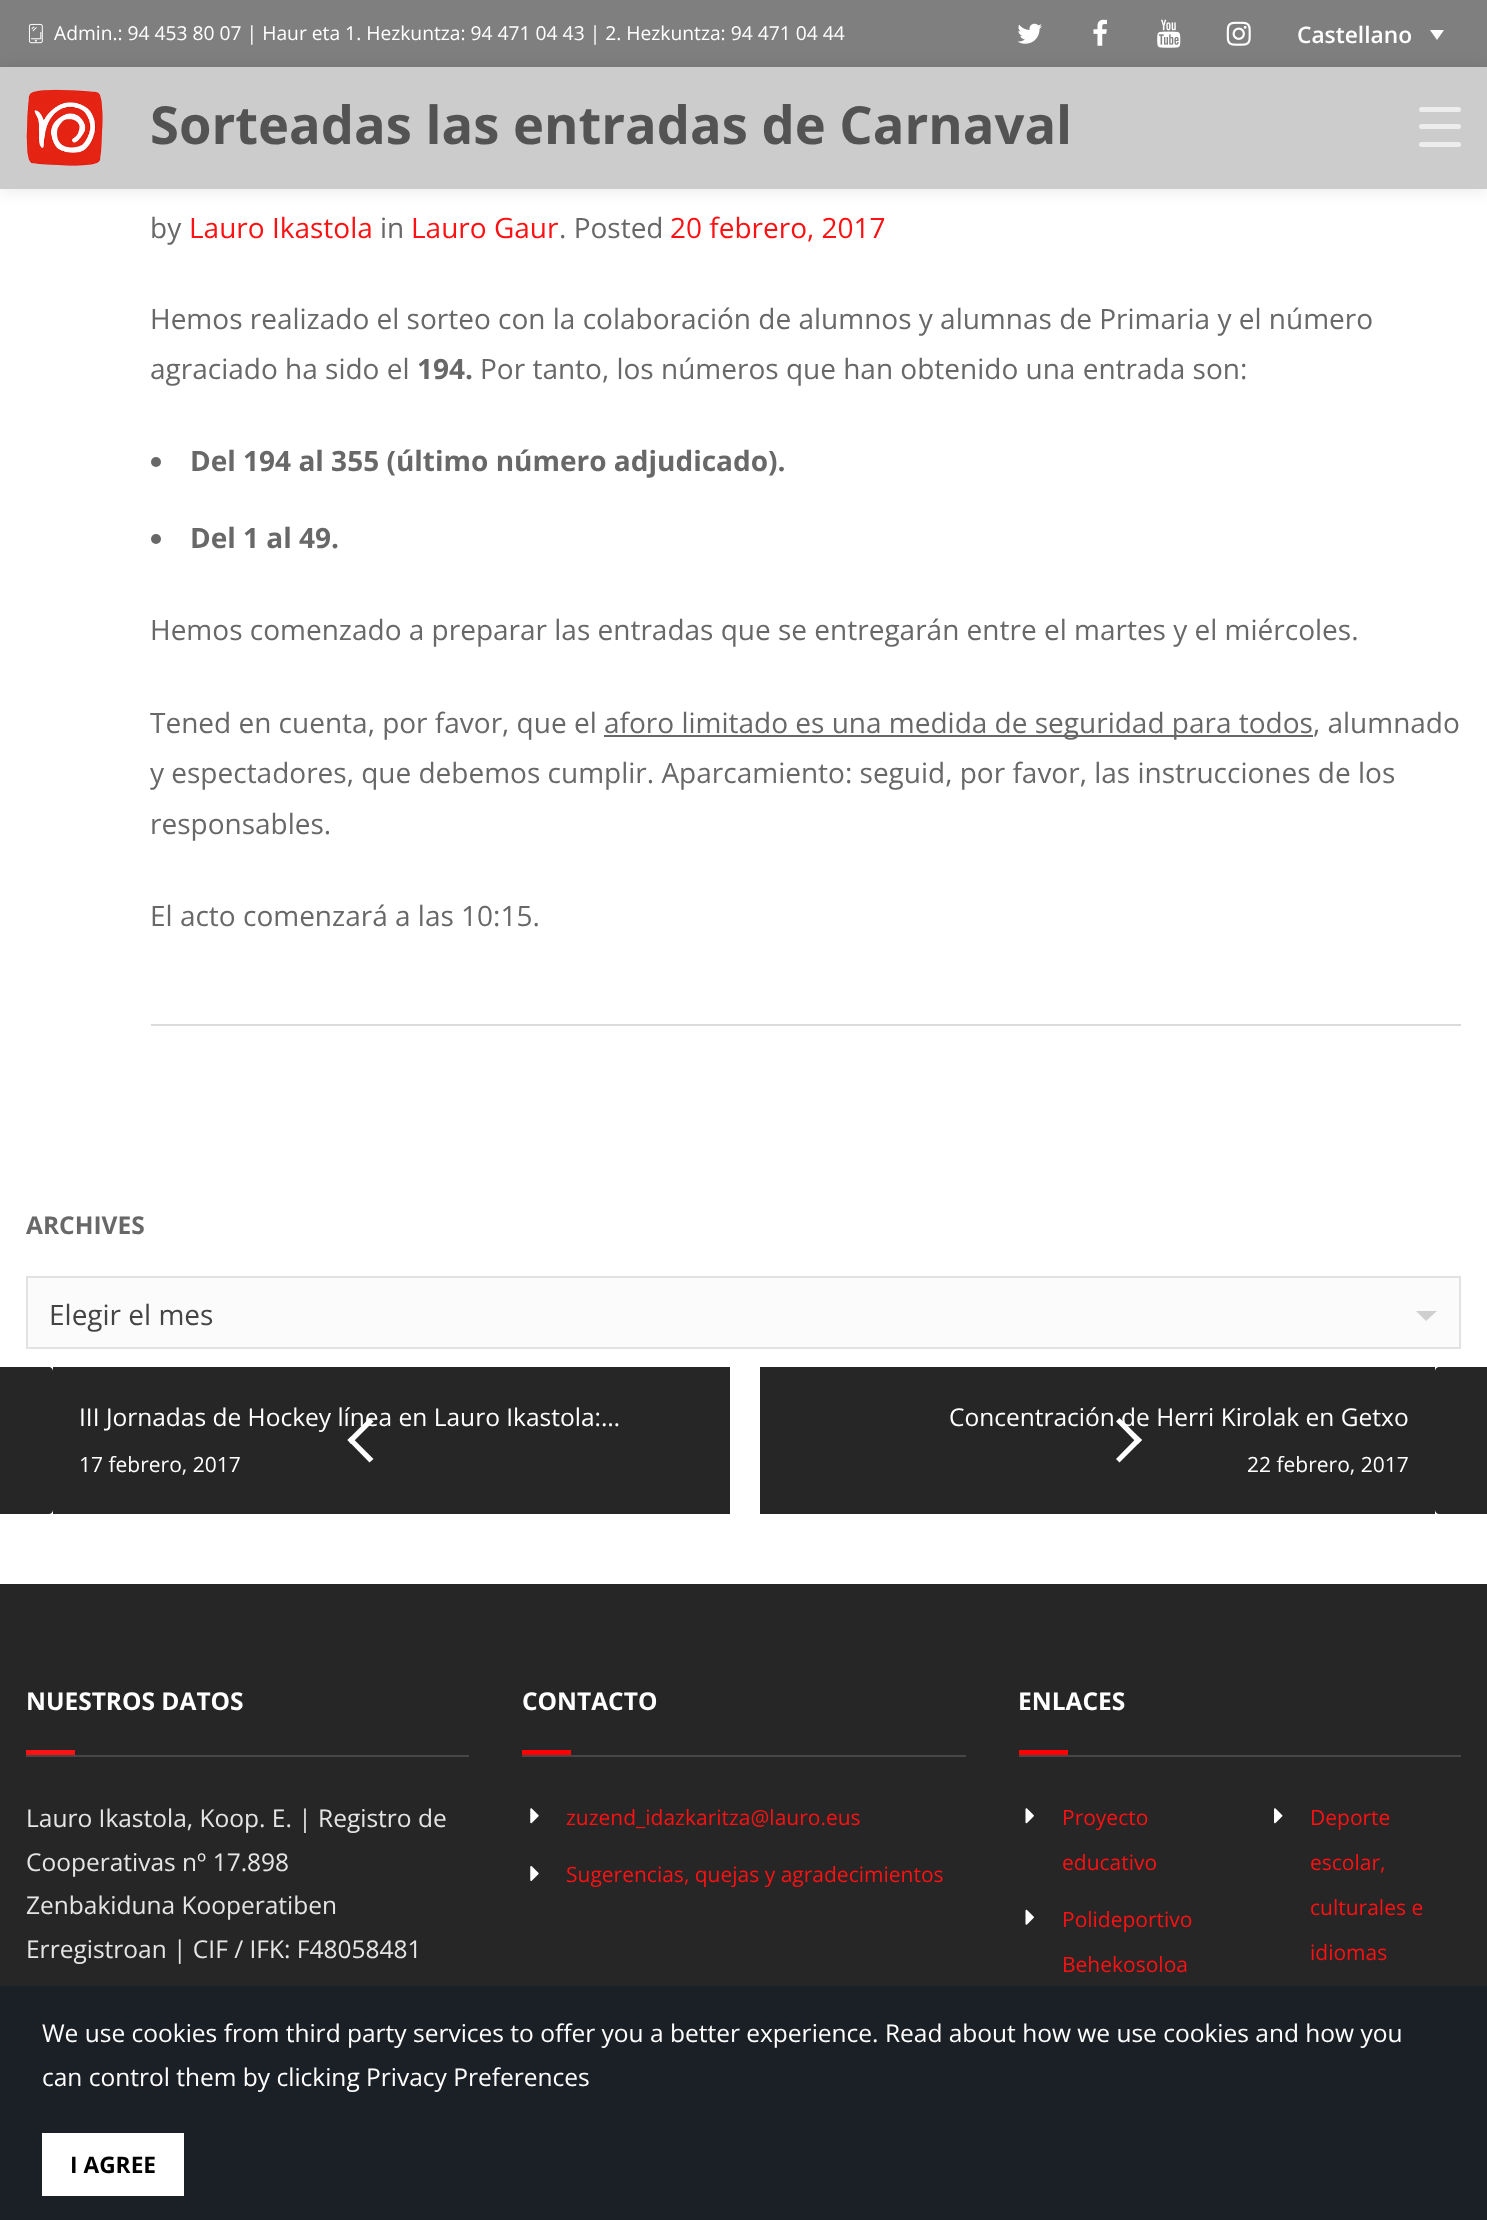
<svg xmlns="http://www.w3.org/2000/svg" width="1487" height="2220">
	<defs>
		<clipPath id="clip1"><path d="M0 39H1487V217H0ZM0 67H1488V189H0Z" clip-rule="evenodd" /></clipPath>
	</defs>
	<rect width="100%" height="100%" fill="#FFFFFF" />
	<rect x="0" y="67" width="1487" height="122" fill="#CCCCCC" />
	<g clip-path="url(#clip1)">
		<rect x="0" y="67" width="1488" height="122" fill="#000000" fill-opacity="0.1" filter="blur(9px)" />
	</g>
	<rect x="0" y="0" width="1487" height="67" fill="#000000" fill-opacity="0.5" />
	<image x="28" y="23" width="15" height="21" href="assets/img1.png" />
	<text x="54" y="40" font-family="Open Sans" font-size="19.25" fill="#FFFFFF">Admin.: 94 453 80 07 | Haur eta 1. Hezkuntza: 94 471 04 43 | 2. Hezkuntza: 94 471 04 44</text>
	<image x="1017" y="23" width="25" height="21" href="assets/img2.png" />
	<image x="1093" y="19" width="14" height="27" href="assets/img3.png" />
	<image x="1157" y="19" width="24" height="29" href="assets/img4.png" />
	<image x="1226" y="21" width="25" height="25" href="assets/img5.png" />
	<text x="1297" y="43" font-family="Open Sans" font-size="22.75" font-weight="600" fill="#FFFFFF">Castellano</text>
	<path d="M1430 30H1444L1437 40Z" fill="#FFFFFF" />
	<image x="26" y="89" width="77" height="77" href="assets/img6.png" />
	<rect x="1419" y="124" width="42" height="5" rx="2.5" fill="#EDEDED" />
	<rect x="1419" y="107" width="42" height="5" rx="2.5" fill="#EDEDED" />
	<rect x="1419" y="142" width="42" height="5" rx="2.5" fill="#EDEDED" />
	<text x="150" y="144" font-family="Open Sans" font-size="52.5" font-weight="700" fill="#535353">Sorteadas las entradas de Carnaval</text>
	<text x="150" y="238" font-family="Open Sans" font-size="28" fill="#686868">by</text>
	<text x="189" y="238" font-family="Open Sans" font-size="28" fill="#FD1113">Lauro Ikastola</text>
	<text x="380" y="238" font-family="Open Sans" font-size="28" fill="#686868">in</text>
	<text x="411" y="238" font-family="Open Sans" font-size="28" fill="#FD1113">Lauro Gaur</text>
	<text x="559" y="238" font-family="Open Sans" font-size="28" fill="#686868">. Posted</text>
	<text x="670" y="238" font-family="Open Sans" font-size="28" fill="#FD1113">20 febrero, 2017</text>
	<g font-family="Open Sans" font-size="28" fill="#686868">
		<text x="150" y="329">Hemos realizado el sorteo con la colaboración de alumnos y alumnas de Primaria y el número</text>
		<text x="150" y="379">agraciado ha sido el</text>
	</g>
	<text x="417" y="379" font-family="Open Sans" font-size="28" font-weight="700" fill="#686868">194.</text>
	<text x="480" y="379" font-family="Open Sans" font-size="28" fill="#686868">Por tanto, los números que han obtenido una entrada son:</text>
	<circle cx="156" cy="462" r="5" fill="#686868" />
	<text x="190" y="471" font-family="Open Sans" font-size="28" font-weight="700" fill="#686868">Del 194 al 355 (último número adjudicado).</text>
	<circle cx="156" cy="539" r="5" fill="#686868" />
	<text x="190" y="548" font-family="Open Sans" font-size="28" font-weight="700" fill="#686868">Del 1 al 49.</text>
	<g font-family="Open Sans" font-size="28" fill="#686868">
		<text x="150" y="640">Hemos comenzado a preparar las entradas que se entregarán entre el martes y el miércoles.</text>
		<text x="150" y="733">Tened en cuenta, por favor, que el</text>
	</g>
	<rect x="604" y="735" width="709" height="2" fill="#686868" />
	<g font-family="Open Sans" font-size="28" fill="#686868">
		<text x="604" y="733">aforo limitado es una medida de seguridad para todos, alumnado</text>
		<text x="150" y="783">y espectadores, que debemos cumplir. Aparcamiento: seguid, por favor, las instrucciones de los</text>
		<text x="150" y="834">responsables.</text>
		<text x="150" y="926">El acto comenzará a las 10:15.</text>
	</g>
	<rect x="151" y="1024" width="1310" height="2" fill="#DBDBDB" />
	<text x="26" y="1234" font-family="Open Sans" font-size="24.5" font-weight="700" fill="#686868">ARCHIVES</text>
	<rect x="27" y="1277" width="1433" height="71" fill="#FBFBFB" stroke="#E2E2E2" stroke-width="2" />
	<text x="49" y="1325" font-family="Open Sans" font-size="28" fill="#444444">Elegir el mes</text>
	<path d="M1416 1311H1437L1426 1321Z" fill="#CFCFCF" />
	<path d="M0 1367H49C51 1367 53 1369 53 1371V1510C53 1512 51 1514 49 1514H0Z" fill="#262626" />
	<rect x="53" y="1367" width="677" height="147" fill="#262626" />
	<path d="M369.5 1462.5L347.5 1440L351 1436.5L373.5 1459Z" fill="#FFFFFF" />
	<path d="M351 1444L347.5 1440L369.5 1418L373.5 1421.5Z" fill="#FFFFFF" />
	<text x="79" y="1426" font-family="Open Sans" font-size="24.5" fill="#FFFFFF">III Jornadas de Hockey línea en Lauro Ikastola:…</text>
	<text x="79" y="1472" font-family="Open Sans" font-size="21" fill="#FFFFFF">17 febrero, 2017</text>
	<path d="M1439 1367H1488V1514H1439C1437 1514 1435 1512 1435 1510V1371C1435 1369 1437 1367 1439 1367Z" fill="#262626" />
	<rect x="760" y="1367" width="675" height="147" fill="#262626" />
	<path d="M1119.5 1418L1142 1440L1138 1444L1116 1421.5Z" fill="#FFFFFF" />
	<path d="M1138 1436.5L1142 1440L1119.5 1462.5L1116 1459Z" fill="#FFFFFF" />
	<text x="949" y="1426" font-family="Open Sans" font-size="24.5" fill="#FFFFFF">Concentración de Herri Kirolak en Getxo</text>
	<text x="1247" y="1472" font-family="Open Sans" font-size="21" fill="#FFFFFF">22 febrero, 2017</text>
	<rect x="0" y="1584" width="1487" height="402" fill="#262626" />
	<text x="26" y="1710" font-family="Open Sans" font-size="24.5" font-weight="700" fill="#FFFFFF">NUESTROS DATOS</text>
	<rect x="26" y="1750" width="49" height="5" fill="#FD1113" />
	<rect x="26" y="1755" width="443" height="2" fill="#474747" />
	<g font-family="Open Sans" font-size="24.5" fill="#E5E5E5">
		<text x="26" y="1827">Lauro Ikastola, Koop. E. | Registro de</text>
		<text x="26" y="1871">Cooperativas nº 17.898</text>
		<text x="26" y="1914">Zenbakiduna Kooperatiben</text>
		<text x="26" y="1958">Erregistroan | CIF / IFK: F48058481</text>
	</g>
	<text x="522" y="1710" font-family="Open Sans" font-size="24.5" font-weight="700" fill="#FFFFFF">CONTACTO</text>
	<rect x="522" y="1750" width="49" height="5" fill="#FF0000" />
	<rect x="522" y="1755" width="444" height="2" fill="#474747" />
	<image x="530" y="1808" width="9" height="16" href="assets/img7.png" />
	<text x="566" y="1825" font-family="Open Sans" font-size="21" fill="#FD1113">zuzend_idazkaritza@lauro.eus</text>
	<image x="530" y="1866" width="9" height="15" href="assets/img8.png" />
	<text x="566" y="1882" font-family="Open Sans" font-size="21" fill="#FD1113">Sugerencias, quejas y agradecimientos</text>
	<text x="1018" y="1710" font-family="Open Sans" font-size="24.5" font-weight="700" fill="#FFFFFF">ENLACES</text>
	<rect x="1019" y="1750" width="49" height="5" fill="#FF0000" />
	<rect x="1019" y="1755" width="442" height="2" fill="#474747" />
	<image x="1025" y="1808" width="9" height="16" href="assets/img9.png" />
	<g font-family="Open Sans" font-size="21" fill="#FD1113">
		<text x="1062" y="1825">Proyecto</text>
		<text x="1062" y="1870">educativo</text>
	</g>
	<image x="1025" y="1909" width="9" height="16" href="assets/img10.png" />
	<g font-family="Open Sans" font-size="21" fill="#FD1113">
		<text x="1062" y="1927">Polideportivo</text>
		<text x="1062" y="1972">Behekosoloa</text>
	</g>
	<image x="1274" y="1808" width="9" height="16" href="assets/img11.png" />
	<g font-family="Open Sans" font-size="21" fill="#FD1113">
		<text x="1310" y="1825">Deporte</text>
		<text x="1310" y="1870">escolar,</text>
		<text x="1310" y="1915">culturales e</text>
		<text x="1310" y="1960">idiomas</text>
	</g>
	<rect x="0" y="1986" width="1487" height="234" fill="#1B1F26" />
	<g font-family="Open Sans" font-size="24.5" fill="#FFFFFF">
		<text x="42" y="2042">We use cookies from third party services to offer you a better experience. Read about how we use cookies and how you</text>
		<text x="42" y="2086">can control them by clicking Privacy Preferences</text>
	</g>
	<rect x="42" y="2133" width="142" height="63" fill="#FFFFFF" />
	<text x="70" y="2173" font-family="Open Sans" font-size="22.75" font-weight="700" fill="#000000">I AGREE</text>
</svg>
